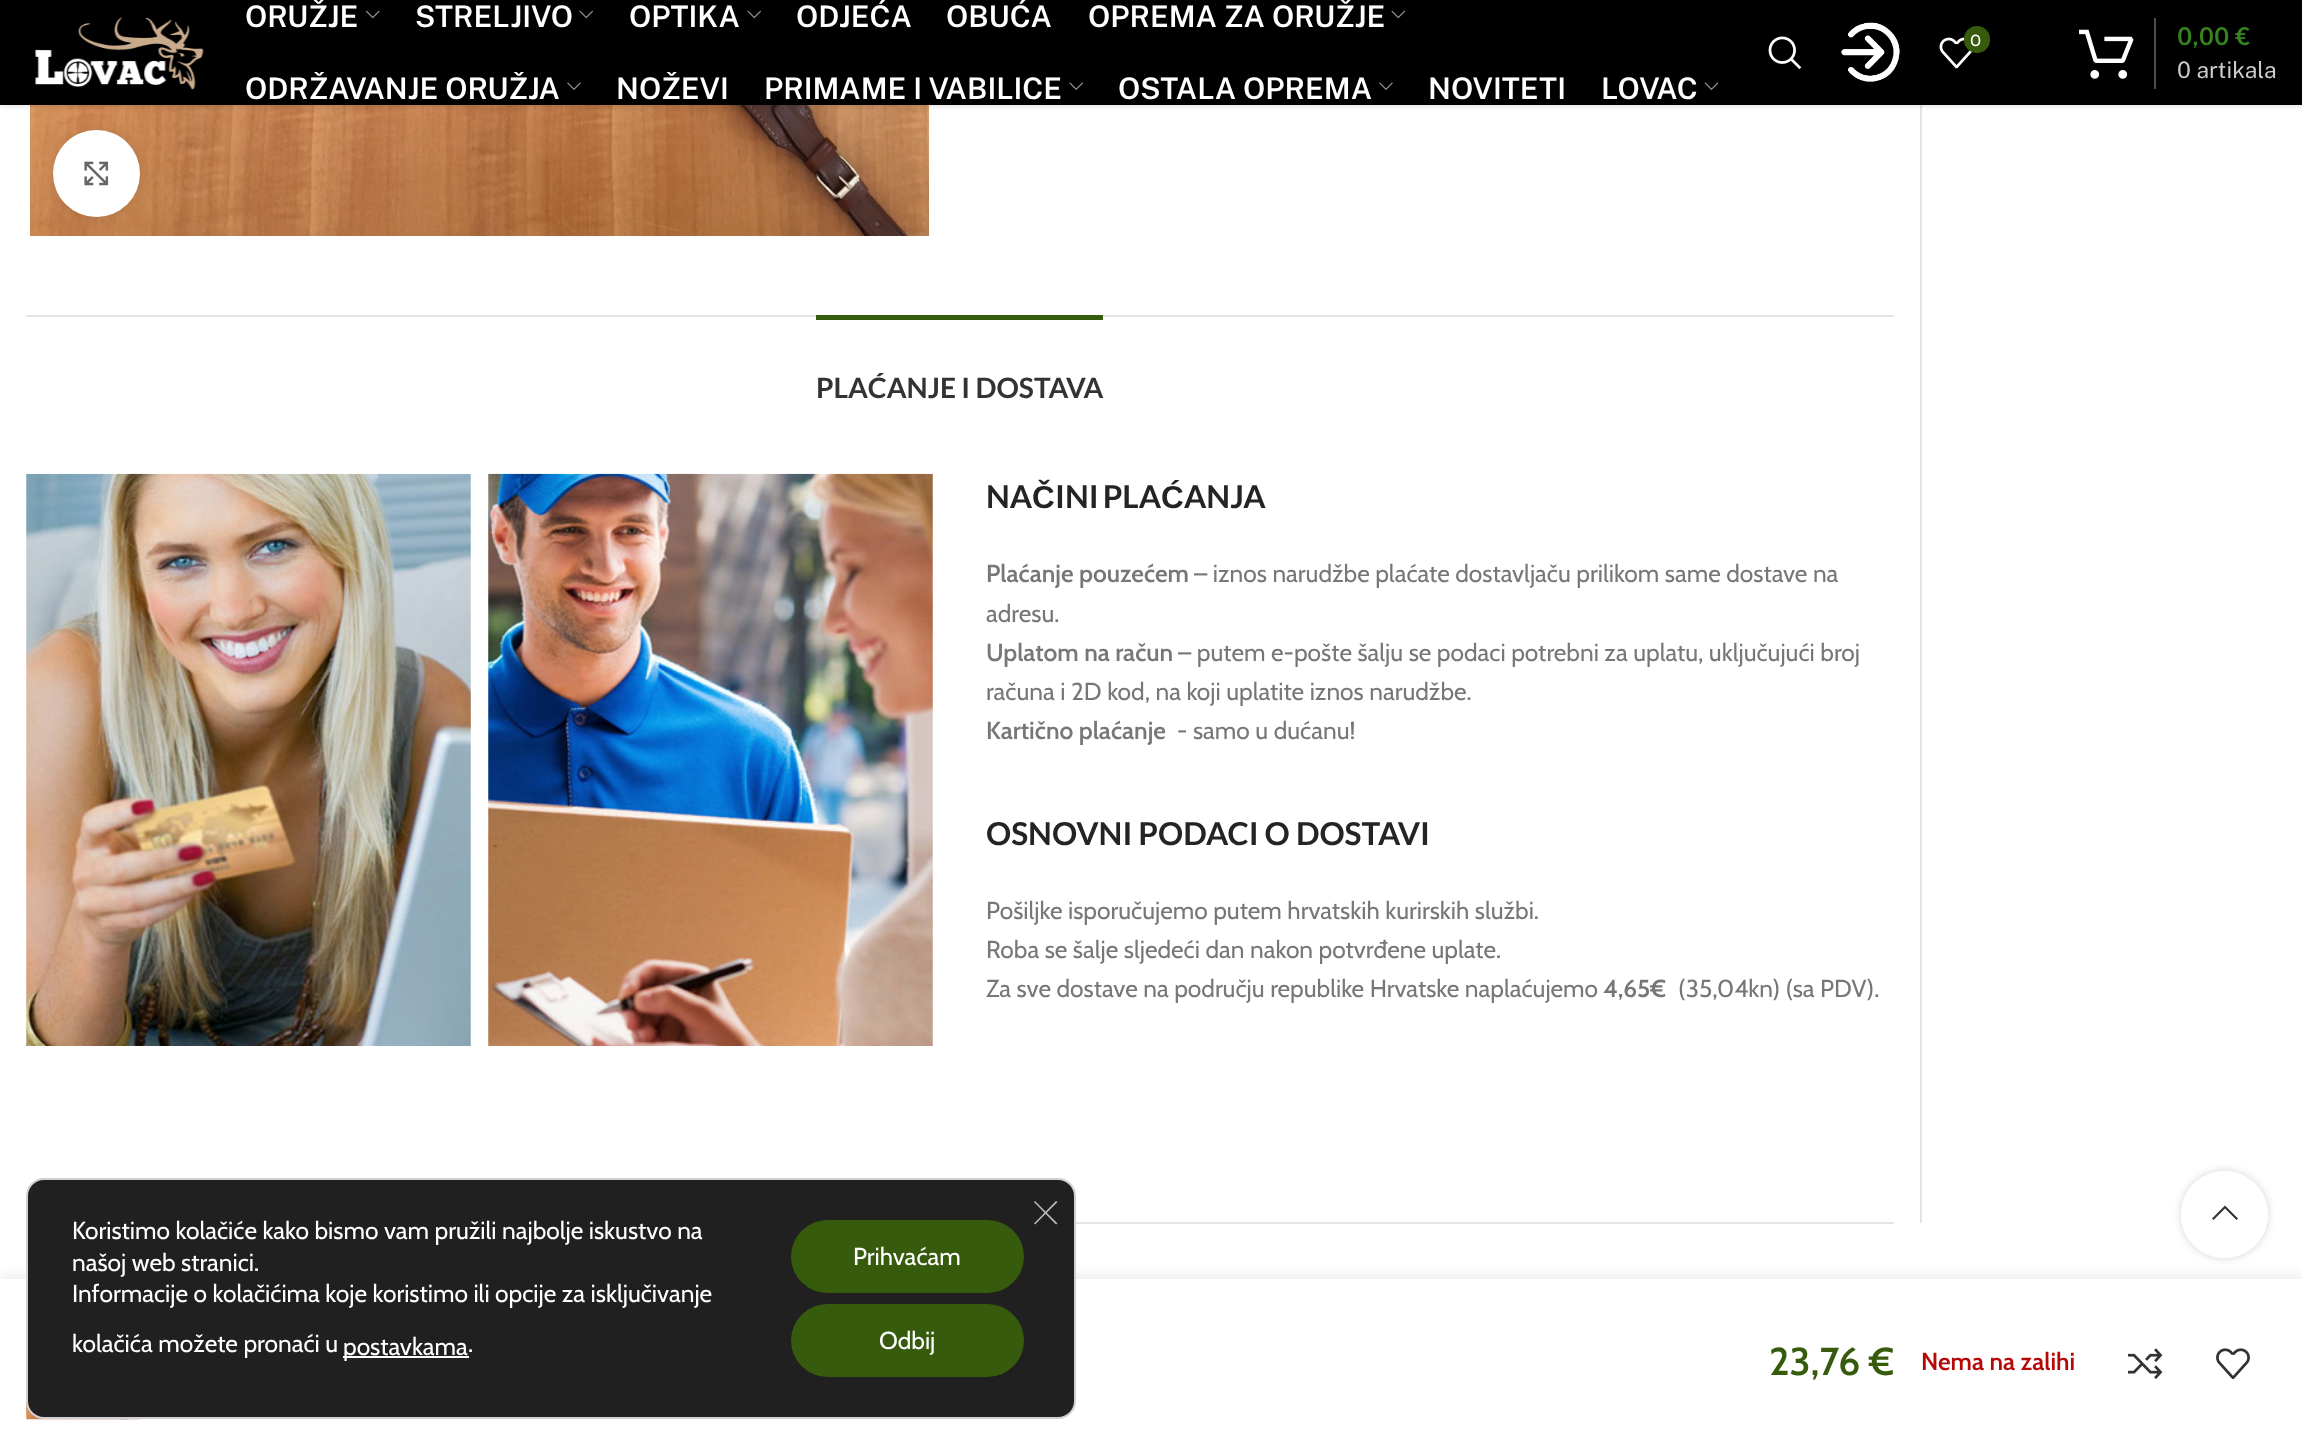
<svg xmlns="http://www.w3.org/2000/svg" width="2302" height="1445">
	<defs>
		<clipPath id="clip1"><path d="M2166 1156H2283V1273H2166ZM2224.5 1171C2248.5 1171 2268 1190.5 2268 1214.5C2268 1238.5 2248.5 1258 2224.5 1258C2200.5 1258 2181 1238.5 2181 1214.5C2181 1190.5 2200.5 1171 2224.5 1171Z" clip-rule="evenodd" /></clipPath>
	</defs>
	<rect width="100%" height="100%" fill="#FFFFFF" />
	<image x="30" y="105" width="899" height="131" href="assets/img11.png" />
	<rect x="1920" y="105" width="2" height="1118" fill="#E4E4E4" />
	<rect x="0" y="2" width="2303" height="105" fill="#000000" fill-opacity="0.1" filter="blur(2.5px)" />
	<rect x="0" y="0" width="2302" height="105" fill="#000000" />
	<image x="35" y="17" width="169" height="73" href="assets/img1.png" />
	<text x="245" y="27" font-family="Public Sans" font-size="29.75" font-weight="600" fill="#FFFFFF">ORUŽJE</text>
	<image x="366" y="10" width="14" height="9" href="assets/img2.png" />
	<text x="415" y="27" font-family="Public Sans" font-size="29.75" font-weight="600" fill="#FFFFFF">STRELJIVO</text>
	<image x="579" y="10" width="14" height="9" href="assets/img3.png" />
	<text x="629" y="27" font-family="Public Sans" font-size="29.75" font-weight="600" fill="#FFFFFF">OPTIKA</text>
	<image x="747" y="10" width="14" height="9" href="assets/img3.png" />
	<g font-family="Public Sans" font-size="29.75" font-weight="600" fill="#FFFFFF">
		<text x="796" y="27">ODJEĆA</text>
		<text x="946" y="27">OBUĆA</text>
		<text x="1088" y="27">OPREMA ZA ORUŽJE</text>
	</g>
	<image x="1391" y="10" width="14" height="9" href="assets/img3.png" />
	<text x="245" y="99" font-family="Public Sans" font-size="29.75" font-weight="600" fill="#FFFFFF">ODRŽAVANJE ORUŽJA</text>
	<image x="567" y="82" width="14" height="8" href="assets/img4.png" />
	<g font-family="Public Sans" font-size="29.75" font-weight="600" fill="#FFFFFF">
		<text x="616" y="99">NOŽEVI</text>
		<text x="764" y="99">PRIMAME I VABILICE</text>
	</g>
	<image x="1069" y="82" width="14" height="8" href="assets/img5.png" />
	<text x="1118" y="99" font-family="Public Sans" font-size="29.75" font-weight="600" fill="#FFFFFF">OSTALA OPREMA</text>
	<image x="1379" y="82" width="14" height="8" href="assets/img4.png" />
	<g font-family="Public Sans" font-size="29.75" font-weight="600" fill="#FFFFFF">
		<text x="1428" y="99">NOVITETI</text>
		<text x="1601" y="99">LOVAC</text>
	</g>
	<image x="1704" y="82" width="15" height="8" href="assets/img6.png" />
	<image x="1768" y="36" width="34" height="34" href="assets/img7.png" />
	<image x="1841" y="22" width="59" height="60" href="assets/img8.png" />
	<image x="1939" y="37" width="33" height="32" href="assets/img9.png" />
	<rect x="1964" y="26" width="26" height="27" rx="13" fill="#375B0D" />
	<text x="1970" y="46" font-family="Cabin" font-size="16" fill="#FFFFFF">0</text>
	<image x="2079" y="29" width="55" height="50" href="assets/img10.png" />
	<rect x="2154" y="18" width="2" height="71" fill="#4D4D4D" />
	<text x="2177" y="45" font-family="Public Sans" font-size="24.5" font-weight="600" fill="#378220">0,00 €</text>
	<text x="2177" y="78" font-family="Public Sans" font-size="22.75" fill="#CCCCCC">0 artikala</text>
	<rect x="53" y="130" width="87" height="87" rx="43.5" fill="#000000" fill-opacity="0.08" filter="blur(4.5px)" />
	<circle cx="96.5" cy="173.5" r="43.5" fill="#FFFFFF" />
	<image x="84" y="161" width="25" height="25" href="assets/img12.png" />
	<rect x="26" y="315" width="1868" height="2" fill="#E4E4E4" />
	<rect x="1076" y="1222" width="818" height="2" fill="#E4E4E4" />
	<rect x="816" y="315" width="287" height="5" fill="#375B0D" />
	<text x="816" y="398" font-family="Lato" font-size="28" font-weight="700" fill="#333333">PLAĆANJE I DOSTAVA</text>
	<image x="26" y="473" width="445" height="573" href="assets/img13.png" />
	<image x="488" y="473" width="445" height="573" href="assets/img14.png" />
	<text x="986" y="508" font-family="Lato" font-size="31.5" font-weight="700" fill="#242424">NA</text>
	<text x="1032" y="508" font-family="Liberation Sans" font-size="31.5" font-weight="700" fill="#242424">Č</text>
	<text x="1055" y="508" word-spacing="-2" font-family="Lato" font-size="31.5" font-weight="700" fill="#242424">INI PLA</text>
	<text x="1161" y="508" font-family="Liberation Sans" font-size="31.5" font-weight="700" fill="#242424">Ć</text>
	<text x="1184" y="508" font-family="Lato" font-size="31.5" font-weight="700" fill="#242424">ANJA</text>
	<text x="986" y="582" font-family="Cabin" font-size="24.5" font-weight="600" fill="#777777">Plaćanje pouzećem</text>
	<g font-family="Cabin" font-size="24.5" fill="#777777">
		<text x="1194" y="582">– iznos narudžbe plaćate dostavljaču prilikom same dostave na</text>
		<text x="986" y="622">adresu.</text>
	</g>
	<text x="986" y="661" font-family="Cabin" font-size="24.5" font-weight="600" fill="#777777">Uplatom na račun</text>
	<g font-family="Cabin" font-size="24.5" fill="#777777">
		<text x="1178" y="661">– putem e-pošte šalju se podaci potrebni za uplatu, uključujući broj</text>
		<text x="986" y="700">računa i 2D kod, na koji uplatite iznos narudžbe.</text>
	</g>
	<text x="986" y="739" font-family="Cabin" font-size="24.5" font-weight="600" fill="#777777">Kartično plaćanje</text>
	<text x="1177" y="739" font-family="Cabin" font-size="24.5" fill="#777777">- samo u dućanu!</text>
	<text x="986" y="845" font-family="Lato" font-size="31.5" font-weight="700" fill="#242424">OSNOVNI PODACI O DOSTAVI</text>
	<g font-family="Cabin" font-size="24.5" fill="#777777">
		<text x="986" y="919">Pošiljke isporučujemo putem hrvatskih kurirskih službi.</text>
		<text x="986" y="958">Roba se šalje sljedeći dan nakon potvrđene uplate.</text>
		<text x="986" y="997">Za sve dostave na području republike Hrvatske naplaćujemo</text>
	</g>
	<text x="1603" y="997" font-family="Cabin" font-size="24.5" font-weight="600" fill="#777777">4,65€</text>
	<text x="1678" y="997" font-family="Cabin" font-size="24.5" fill="#777777">(35,04kn) (sa PDV).</text>
	<rect x="0" y="1279" width="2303" height="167" fill="#000000" fill-opacity="0.12" filter="blur(8px)" />
	<rect x="0" y="1279" width="2302" height="166" fill="#FFFFFF" />
	<image x="26" y="1401" width="114" height="19" href="assets/img17.png" />
	<rect x="27" y="1179" width="1048" height="239" rx="17" fill="#202020" stroke="#D3CED2" stroke-width="2" />
	<g font-family="Cabin" font-size="24.5" fill="#FFFFFF">
		<text x="72" y="1239">Koristimo kolačiće kako bismo vam pružili najbolje iskustvo na</text>
		<text x="72" y="1271">našoj web stranici.</text>
		<text x="72" y="1302">Informacije o kolačićima koje koristimo ili opcije za isključivanje</text>
		<text x="72" y="1352">kolačića možete pronaći u</text>
	</g>
	<rect x="343" y="1356" width="126" height="2" fill="#FFFFFF" />
	<g font-family="Cabin" font-size="24.5" fill="#FFFFFF">
		<text x="343" y="1355">postavkama</text>
		<text x="468" y="1352">.</text>
	</g>
	<path d="M1056 1201L1057.5 1202L1035 1224.5L1034 1223.5Z" fill="#BCBCBC" />
	<path d="M1034 1202L1035 1201L1057.5 1223.5L1056 1224.5Z" fill="#BCBCBC" />
	<rect x="791" y="1220" width="233" height="73" rx="36.5" fill="#375B0D" />
	<text x="853" y="1265" font-family="Cabin" font-size="24.5" fill="#FFFFFF">Prihvaćam</text>
	<rect x="791" y="1304" width="233" height="73" rx="36.5" fill="#375B0D" />
	<text x="879" y="1349" font-family="Cabin" font-size="24.5" fill="#FFFFFF">Odbij</text>
	<text x="1769" y="1375" font-family="Cabin" font-size="39" font-weight="600" fill="#375B0D">23,76 €</text>
	<text x="1921" y="1370" font-family="Cabin" font-size="24.5" font-weight="600" fill="#B50808">Nema na zalihi</text>
	<image x="2128" y="1348" width="35" height="31" href="assets/img15.png" />
	<image x="2216" y="1348" width="34" height="31" href="assets/img16.png" />
	<g clip-path="url(#clip1)">
		<rect x="2181" y="1171" width="87" height="87" rx="43.5" fill="#000000" fill-opacity="0.17" filter="blur(4.5px)" />
	</g>
	<circle cx="2224.5" cy="1214.5" r="43.5" fill="#FFFFFF" fill-opacity="0.9" />
	<path d="M2236.5 1220L2238 1218.5L2225 1205.5L2212 1218.5L2213.5 1220L2225 1208.5Z" fill="#333333" />
</svg>
